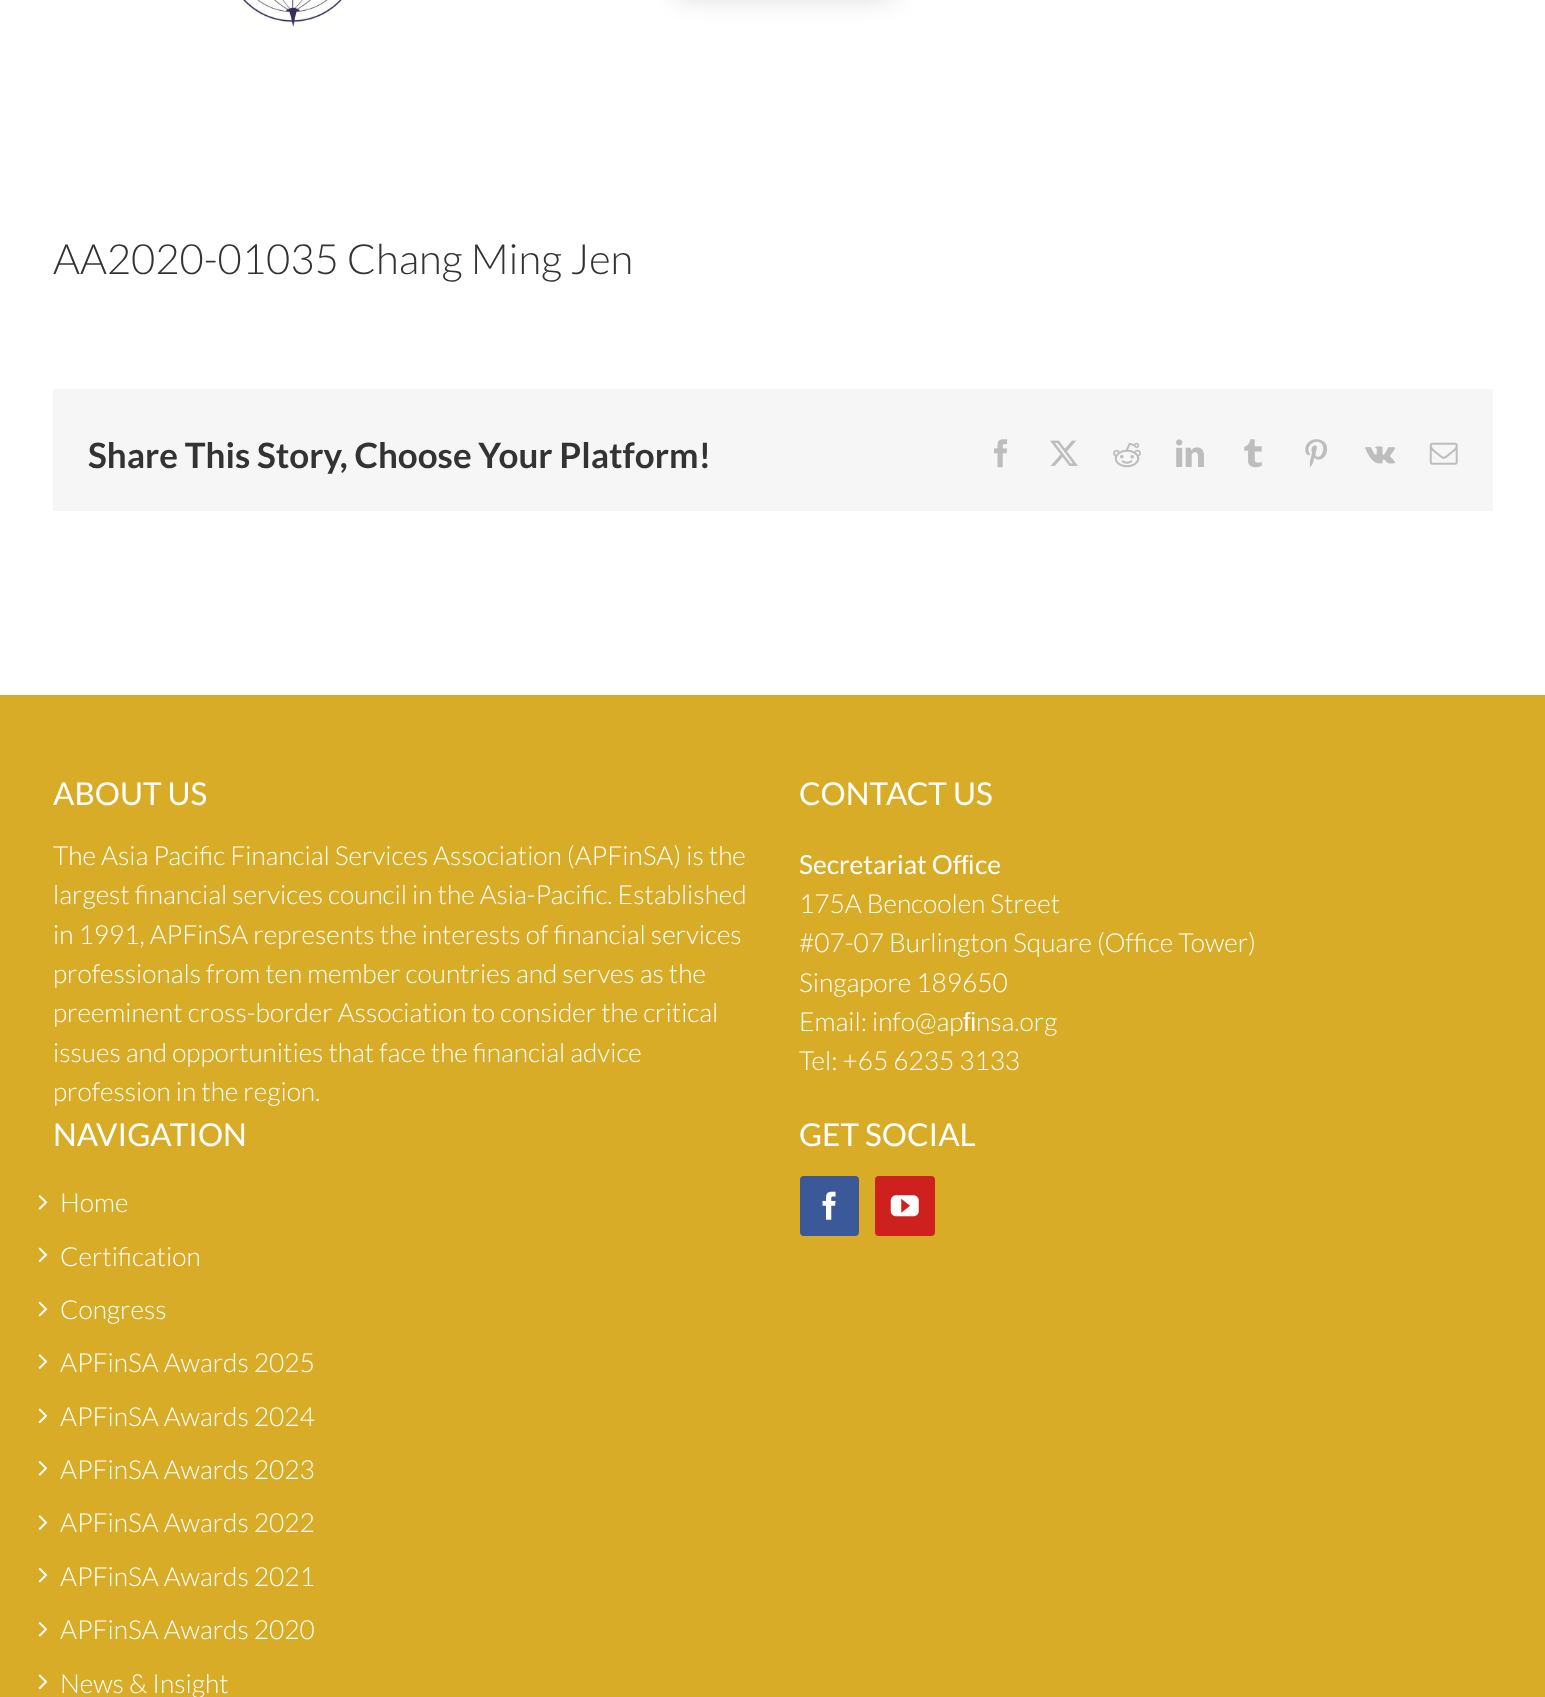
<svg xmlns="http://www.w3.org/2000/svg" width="1545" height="1697">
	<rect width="100%" height="100%" fill="#FFFFFF" />
	<image x="239" y="0" width="106" height="27" href="assets/img1.png" />
	<rect x="679" y="-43" width="214" height="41" rx="4" fill="#000000" fill-opacity="0.15" filter="blur(13px)" />
	<text x="53" y="274" font-family="Lato" font-size="41.75" font-weight="300" fill="#333333">AA2020-01035 Chang Ming Jen</text>
	<rect x="53" y="389" width="1440" height="122" fill="#F6F6F6" />
	<text x="88" y="468" font-family="Lato" font-size="35" font-weight="700" fill="#333333">Share This Story, Choose Your Platform!</text>
	<image x="994" y="439" width="14" height="29" href="assets/img2.png" />
	<image x="1050" y="440" width="28" height="26" href="assets/img3.png" />
	<image x="1113" y="442" width="28" height="26" href="assets/img4.png" />
	<image x="1176" y="439" width="28" height="28" href="assets/img5.png" />
	<image x="1244" y="439" width="18" height="29" href="assets/img6.png" />
	<image x="1305" y="439" width="22" height="28" href="assets/img7.png" />
	<image x="1365" y="446" width="30" height="18" href="assets/img8.png" />
	<image x="1429" y="442" width="29" height="23" href="assets/img9.png" />
	<rect x="0" y="695" width="1545" height="1002" fill="#D9AC28" />
	<text x="53" y="805" font-family="Lato" font-size="31.5" fill="#FFFFFF">ABOUT US</text>
	<g font-family="Lato" font-size="26.25" font-weight="300" fill="#FFFFFF">
		<text x="53" y="865">The Asia Pacific Financial Services Association (APFinSA) is the</text>
		<text x="53" y="904">largest financial services council in the Asia-Pacific. Established</text>
		<text x="53" y="944">in 1991, APFinSA represents the interests of financial services</text>
		<text x="53" y="983">professionals from ten member countries and serves as the</text>
		<text x="53" y="1022">preeminent cross-border Association to consider the critical</text>
		<text x="53" y="1062">issues and opportunities that face the financial advice</text>
		<text x="53" y="1101">profession in the region.</text>
	</g>
	<text x="799" y="805" font-family="Lato" font-size="31.5" fill="#FFFFFF">CONTACT US</text>
	<text x="799" y="874" font-family="Lato" font-size="26.25" fill="#FFFFFF">Secretariat Of</text>
	<text x="961" y="874" font-family="Liberation Sans" font-size="26.25" fill="#FFFFFF">ﬁ</text>
	<text x="975" y="874" font-family="Lato" font-size="26.25" fill="#FFFFFF">ce</text>
	<g font-family="Lato" font-size="26.25" font-weight="300" fill="#FFFFFF">
		<text x="799" y="913">175A Bencoolen Street</text>
		<text x="799" y="952">#07-07 Burlington Square (Office Tower)</text>
		<text x="799" y="992">Singapore 189650</text>
		<text x="799" y="1031">Email: info@ap</text>
	</g>
	<text x="963" y="1031" font-family="Liberation Sans" font-size="26.25" fill="#FFFFFF">ﬁ</text>
	<g font-family="Lato" font-size="26.25" font-weight="300" fill="#FFFFFF">
		<text x="976" y="1031">nsa.org</text>
		<text x="799" y="1070">Tel: +65 6235 3133</text>
	</g>
	<text x="53" y="1146" font-family="Lato" font-size="31.5" fill="#FFFFFF">NAVIGATION</text>
	<image x="38" y="1195" width="10" height="15" href="assets/img10.png" />
	<text x="60" y="1212" font-family="Lato" font-size="26.25" font-weight="300" fill="#FFFFFF">Home</text>
	<image x="38" y="1247" width="10" height="16" href="assets/img11.png" />
	<text x="60" y="1266" font-family="Lato" font-size="26.25" font-weight="300" fill="#FFFFFF">Certification</text>
	<image x="38" y="1301" width="10" height="16" href="assets/img12.png" />
	<text x="60" y="1319" font-family="Lato" font-size="26.25" font-weight="300" fill="#FFFFFF">Congress</text>
	<image x="38" y="1354" width="10" height="15" href="assets/img13.png" />
	<text x="60" y="1372" font-family="Lato" font-size="26.25" font-weight="300" fill="#FFFFFF">APFinSA Awards 2025</text>
	<image x="38" y="1408" width="10" height="16" href="assets/img11.png" />
	<text x="60" y="1426" font-family="Lato" font-size="26.25" font-weight="300" fill="#FFFFFF">APFinSA Awards 2024</text>
	<image x="38" y="1461" width="10" height="15" href="assets/img10.png" />
	<text x="60" y="1479" font-family="Lato" font-size="26.25" font-weight="300" fill="#FFFFFF">APFinSA Awards 2023</text>
	<image x="38" y="1515" width="10" height="15" href="assets/img13.png" />
	<text x="60" y="1532" font-family="Lato" font-size="26.25" font-weight="300" fill="#FFFFFF">APFinSA Awards 2022</text>
	<image x="38" y="1567" width="10" height="16" href="assets/img12.png" />
	<text x="60" y="1586" font-family="Lato" font-size="26.25" font-weight="300" fill="#FFFFFF">APFinSA Awards 2021</text>
	<image x="38" y="1622" width="10" height="15" href="assets/img10.png" />
	<text x="60" y="1639" font-family="Lato" font-size="26.25" font-weight="300" fill="#FFFFFF">APFinSA Awards 2020</text>
	<image x="38" y="1674" width="10" height="16" href="assets/img11.png" />
	<text x="60" y="1693" font-family="Lato" font-size="26.25" font-weight="300" fill="#FFFFFF">News &amp; Insight</text>
	<text x="799" y="1146" font-family="Lato" font-size="31.5" fill="#FFFFFF">GET SOCIAL</text>
	<rect x="801" y="1177" width="57" height="58" rx="3" fill="#3B5998" stroke="#3B5998" stroke-width="2" />
	<image x="822" y="1191" width="14" height="29" href="assets/img14.png" />
	<rect x="876" y="1177" width="58" height="58" rx="3" fill="#CD201F" stroke="#CD201F" stroke-width="2" />
	<image x="890" y="1195" width="29" height="22" href="assets/img15.png" />
</svg>
